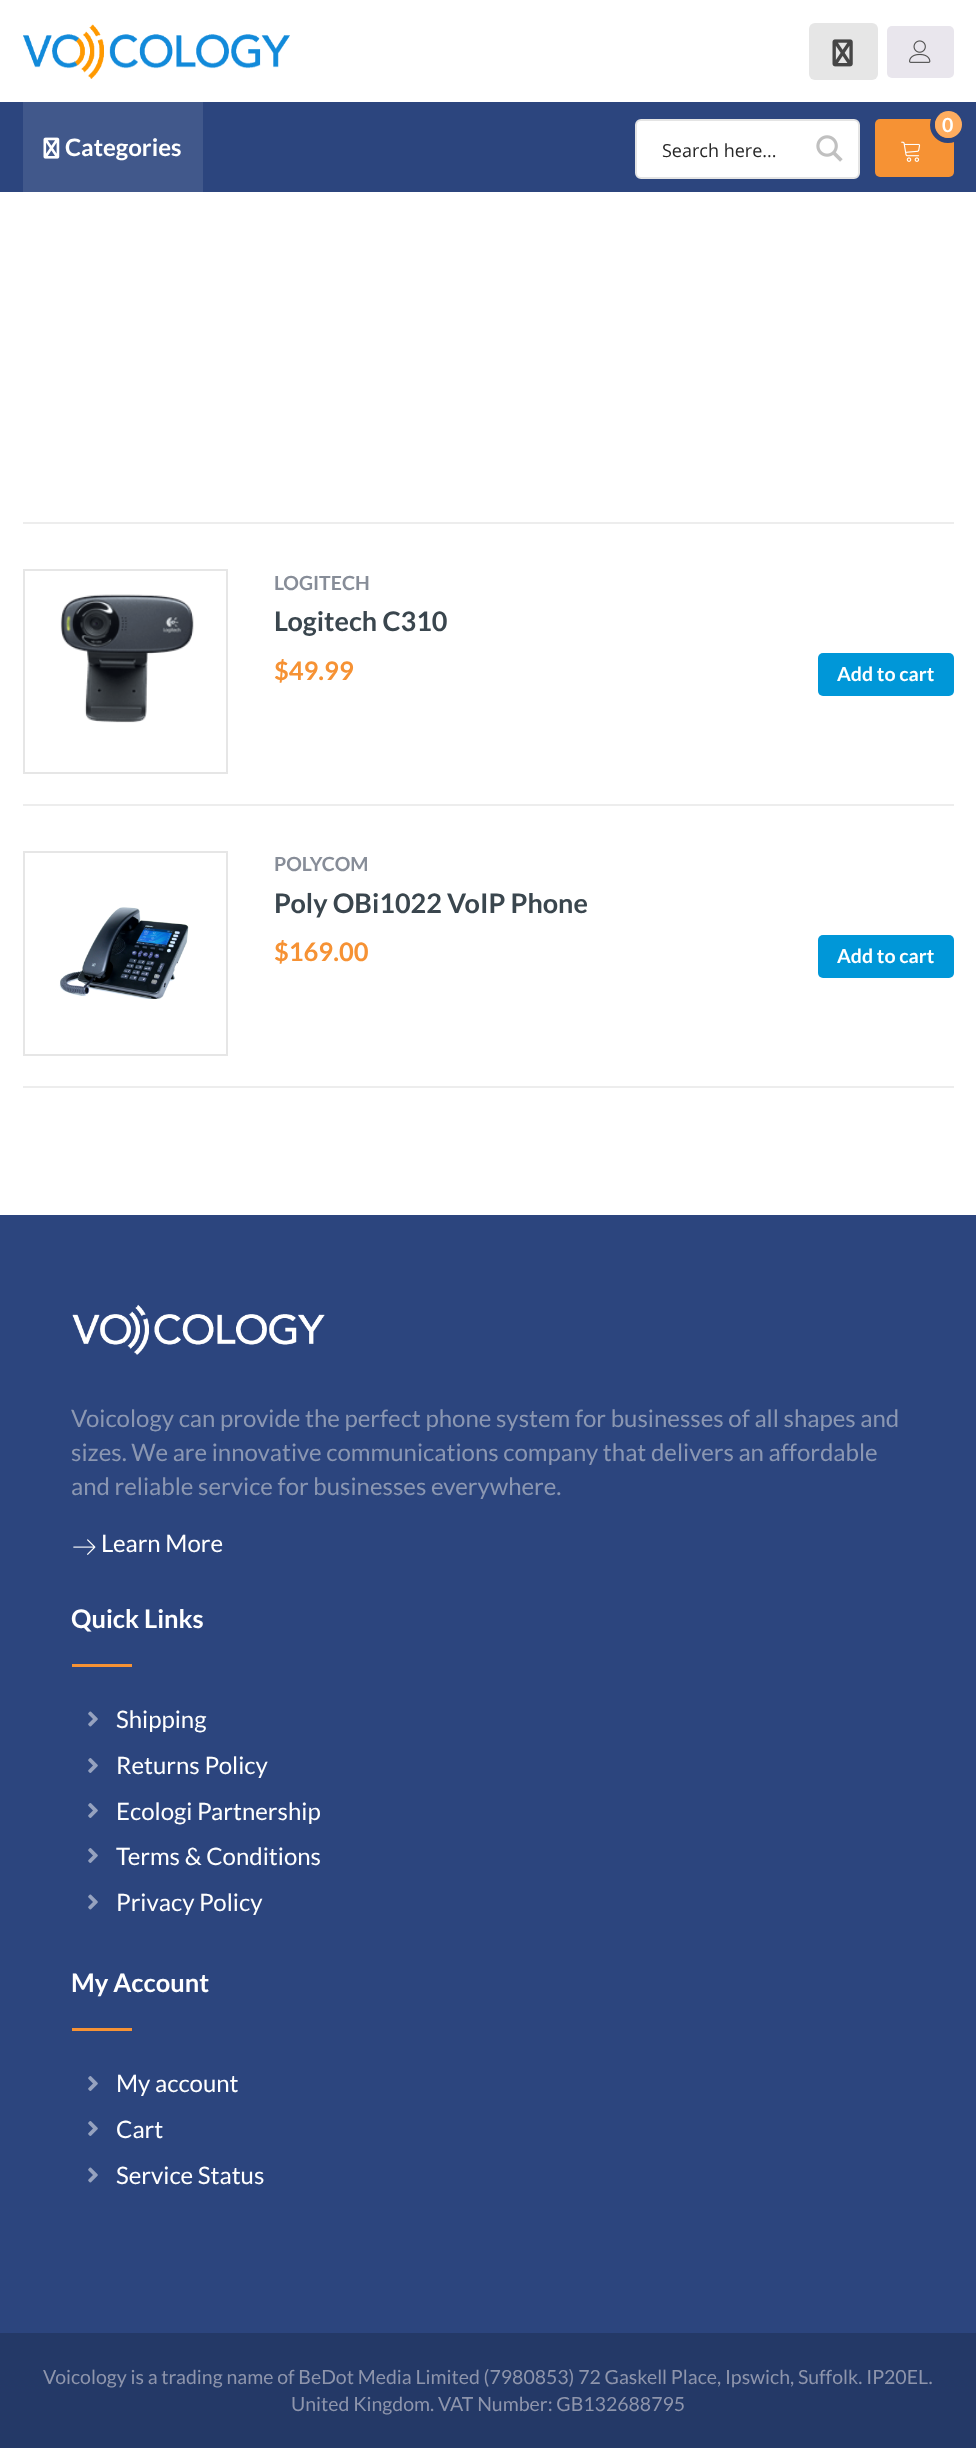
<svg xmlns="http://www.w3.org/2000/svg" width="976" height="2448">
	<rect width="100%" height="100%" fill="#FFFFFF" />
	<image x="23" y="24" width="267" height="55" href="assets/img1.png" />
	<rect x="809" y="23" width="69" height="57" rx="6" fill="#E6E6E6" />
	<image x="832" y="39" width="21" height="28" href="assets/img2.png" />
	<rect x="887" y="26" width="67" height="52" rx="5" fill="#E9E6ED" />
	<image x="909" y="40" width="22" height="23" href="assets/img3.png" />
	<rect x="0" y="102" width="976" height="90" fill="#2C457E" />
	<rect x="875" y="119" width="79" height="58" rx="5" fill="#F69234" />
	<circle cx="948" cy="125" r="15.5" fill="none" stroke="#2C457E" stroke-width="5" />
	<circle cx="948.5" cy="124.5" r="13.5" fill="#FFAD5F" />
	<text x="942" y="132" font-family="Lato" font-size="19.5" font-weight="700" fill="#FFFFFF">0</text>
	<image x="901" y="141" width="20" height="21" href="assets/img4.png" />
	<rect x="23" y="102" width="180" height="90" fill="#41588B" />
	<image x="43" y="137" width="17" height="22" href="assets/img5.png" />
	<text x="65" y="156" font-family="Lato" font-size="24" font-weight="700" fill="#FFFFFF">Categories</text>
	<rect x="636" y="120" width="223" height="58" rx="5" fill="#FFFFFF" stroke="#E4E4E4" stroke-width="2" />
	<text x="662" y="157" font-family="Open Sans" font-size="18" fill="#262626">Search here...</text>
	<image x="816" y="135" width="27" height="27" href="assets/img6.png" />
	<rect x="23" y="522" width="931" height="2" fill="#EDEDED" />
	<rect x="23" y="804" width="931" height="2" fill="#EDEDED" />
	<rect x="24" y="570" width="203" height="203" fill="none" stroke="#E6E6E6" stroke-width="2" />
	<image x="60" y="594" width="134" height="129" href="assets/img7.png" />
	<text x="274" y="590" font-family="Lato" font-size="19.5" font-weight="700" fill="#878D98">LOGITECH</text>
	<text x="274" y="631" font-family="Lato" font-size="27" font-weight="700" fill="#3A464E">Logitech C310</text>
	<text x="274" y="680" font-family="Lato" font-size="25.5" font-weight="700" fill="#F69234">$49.99</text>
	<rect x="818" y="653" width="136" height="43" rx="5" fill="#0097D8" />
	<text x="837" y="681" font-family="Lato" font-size="19.5" font-weight="700" fill="#FFFFFF">Add to cart</text>
	<rect x="23" y="1086" width="931" height="2" fill="#EDEDED" />
	<rect x="24" y="852" width="203" height="203" fill="none" stroke="#E6E6E6" stroke-width="2" />
	<image x="59" y="907" width="130" height="92" href="assets/img8.png" />
	<text x="274" y="871" font-family="Lato" font-size="19.5" font-weight="700" fill="#878D98">POLYCOM</text>
	<text x="274" y="913" font-family="Lato" font-size="27" font-weight="700" fill="#3A464E">Poly OBi1022 VoIP Phone</text>
	<text x="274" y="961" font-family="Lato" font-size="25.5" font-weight="700" fill="#F69234">$169.00</text>
	<rect x="818" y="935" width="136" height="43" rx="5" fill="#0097D8" />
	<text x="837" y="963" font-family="Lato" font-size="19.5" font-weight="700" fill="#FFFFFF">Add to cart</text>
	<rect x="0" y="1215" width="976" height="1118" fill="#2C457E" />
	<image x="72" y="1304" width="253" height="51" href="assets/img9.png" />
	<g font-family="Lato" font-size="24" fill="#8B97B2">
		<text x="71" y="1427">Voicology can provide the perfect phone system for businesses of all shapes and</text>
		<text x="71" y="1461">sizes. We are innovative communications company that delivers an affordable</text>
		<text x="71" y="1495">and reliable service for businesses everywhere.</text>
	</g>
	<image x="73" y="1539" width="23" height="16" href="assets/img10.png" />
	<text x="101" y="1552" font-family="Lato" font-size="24" fill="#FFFFFF">Learn More</text>
	<text x="71" y="1628" font-family="Lato" font-size="25.5" font-weight="700" fill="#FFFFFF">Quick Links</text>
	<rect x="72" y="1664" width="60" height="3" fill="#F69234" />
	<image x="88" y="1711" width="10" height="16" href="assets/img11.png" />
	<text x="116" y="1728" font-family="Lato" font-size="24" fill="#FFFFFF">Shipping</text>
	<image x="88" y="1758" width="10" height="15" href="assets/img12.png" />
	<text x="116" y="1774" font-family="Lato" font-size="24" fill="#FFFFFF">Returns Policy</text>
	<image x="88" y="1803" width="10" height="15" href="assets/img12.png" />
	<text x="116" y="1820" font-family="Lato" font-size="24" fill="#FFFFFF">Ecologi Partnership</text>
	<image x="88" y="1848" width="10" height="15" href="assets/img12.png" />
	<text x="116" y="1865" font-family="Lato" font-size="24" fill="#FFFFFF">Terms &amp; Conditions</text>
	<image x="88" y="1894" width="10" height="16" href="assets/img11.png" />
	<text x="116" y="1911" font-family="Lato" font-size="24" fill="#FFFFFF">Privacy Policy</text>
	<text x="71" y="1992" font-family="Lato" font-size="25.5" font-weight="700" fill="#FFFFFF">My Account</text>
	<rect x="72" y="2028" width="60" height="3" fill="#F69234" />
	<image x="88" y="2076" width="10" height="15" href="assets/img12.png" />
	<text x="116" y="2092" font-family="Lato" font-size="24" fill="#FFFFFF">My account</text>
	<image x="88" y="2121" width="10" height="15" href="assets/img12.png" />
	<text x="116" y="2138" font-family="Lato" font-size="24" fill="#FFFFFF">Cart</text>
	<image x="88" y="2167" width="10" height="16" href="assets/img11.png" />
	<text x="116" y="2184" font-family="Lato" font-size="24" fill="#FFFFFF">Service Status</text>
	<rect x="0" y="2333" width="976" height="115" fill="#243967" />
	<g font-family="Lato" font-size="19.5" fill="#8E95AC">
		<text x="43" y="2384">Voicology is a trading name of BeDot Media Limited (7980853) 72 Gaskell Place, Ipswich, Suffolk. IP20EL.</text>
		<text x="291" y="2411">United Kingdom. VAT Number: GB132688795</text>
	</g>
</svg>
